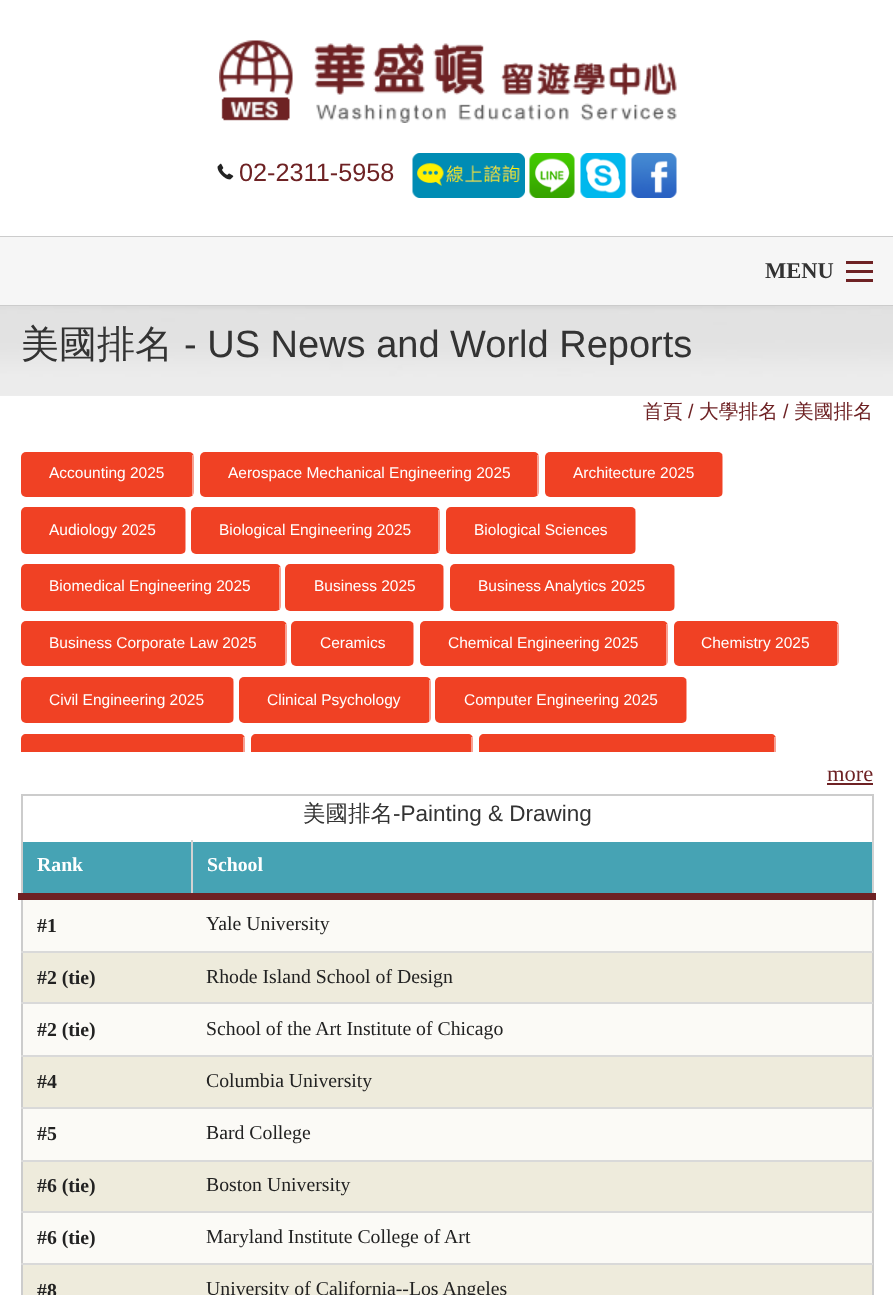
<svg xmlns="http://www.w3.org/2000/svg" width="893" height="1295">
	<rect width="100%" height="100%" fill="#FFFFFF" />
	<image x="219" y="40" width="458" height="83" href="assets/img1.png" />
	<image x="217" y="163" width="17" height="17" href="assets/img2.png" />
	<text x="239" y="181" font-family="Liberation Sans" font-size="25.25" fill="#6E2224">02-2311-5958</text>
	<image x="412" y="153" width="113" height="45" href="assets/img3.png" />
	<image x="529" y="153" width="46" height="45" href="assets/img4.png" />
	<image x="580" y="153" width="46" height="45" href="assets/img5.png" />
	<image x="631" y="153" width="46" height="45" href="assets/img6.png" />
	<rect x="0" y="236" width="893" height="1" fill="#CCCCCC" />
	<rect x="0" y="305" width="893" height="1" fill="#CCCCCC" />
	<rect x="0" y="237" width="893" height="68" fill="#F6F6F6" />
	<text x="765" y="278" font-family="Liberation Serif" font-size="22.5" font-weight="700" fill="#333333">MENU</text>
	<rect x="846" y="279" width="27" height="3" fill="#6E2224" />
	<rect x="846" y="270" width="27" height="3" fill="#6E2224" />
	<rect x="846" y="261" width="27" height="3" fill="#6E2224" />
	<image x="0" y="306" width="893" height="90" href="assets/img7.png" />
	<text x="21" y="357" font-family="WenQuanYi Zen Hei" font-size="38" font-weight="500" fill="#333333">美國排名</text>
	<text x="184" y="357" font-family="Liberation Sans" font-size="38" fill="#333333">- US News and World Reports</text>
	<text x="643" y="418" font-family="WenQuanYi Zen Hei" font-size="19.75" font-weight="500" fill="#6E2224">首頁</text>
	<text x="688" y="418" font-family="Liberation Sans" font-size="19.75" fill="#6E2224">/</text>
	<text x="699" y="418" font-family="WenQuanYi Zen Hei" font-size="19.75" font-weight="500" fill="#6E2224">大學排名</text>
	<text x="783" y="418" font-family="Liberation Sans" font-size="19.75" fill="#6E2224">/</text>
	<text x="794" y="418" font-family="WenQuanYi Zen Hei" font-size="19.75" font-weight="500" fill="#6E2224">美國排名</text>
	<rect x="21" y="452" width="173" height="45" rx="5" fill="#F04124" />
	<rect x="192" y="455" width="2" height="40" fill="#FFFFFF" fill-opacity="0.5" />
	<text x="49" y="478" font-family="Liberation Sans" font-size="15.5" fill="#FFFFFF">Accounting 2025</text>
	<rect x="200" y="452" width="339" height="45" rx="5" fill="#F04124" />
	<rect x="537" y="455" width="2" height="40" fill="#FFFFFF" fill-opacity="0.5" />
	<text x="228" y="478" font-family="Liberation Sans" font-size="15.5" fill="#FFFFFF">Aerospace Mechanical Engineering 2025</text>
	<rect x="545" y="452" width="178" height="45" rx="5" fill="#F04124" />
	<rect x="722" y="455" width="1" height="40" fill="#FFFFFF" fill-opacity="0.5" />
	<text x="573" y="478" font-family="Liberation Sans" font-size="15.5" fill="#FFFFFF">Architecture 2025</text>
	<rect x="21" y="507" width="165" height="47" rx="5" fill="#F04124" />
	<rect x="185" y="510" width="1" height="42" fill="#FFFFFF" fill-opacity="0.5" />
	<text x="49" y="535" font-family="Liberation Sans" font-size="15.5" fill="#FFFFFF">Audiology 2025</text>
	<rect x="191" y="507" width="249" height="47" rx="5" fill="#F04124" />
	<rect x="438" y="510" width="2" height="42" fill="#FFFFFF" fill-opacity="0.5" />
	<text x="219" y="535" font-family="Liberation Sans" font-size="15.5" fill="#FFFFFF">Biological Engineering 2025</text>
	<rect x="446" y="507" width="190" height="47" rx="5" fill="#F04124" />
	<rect x="635" y="510" width="1" height="42" fill="#FFFFFF" fill-opacity="0.5" />
	<text x="474" y="535" font-family="Liberation Sans" font-size="15.5" fill="#FFFFFF">Biological Sciences</text>
	<rect x="21" y="564" width="260" height="47" rx="5" fill="#F04124" />
	<rect x="279" y="567" width="2" height="42" fill="#FFFFFF" fill-opacity="0.5" />
	<text x="49" y="591" font-family="Liberation Sans" font-size="15.5" fill="#FFFFFF">Biomedical Engineering 2025</text>
	<rect x="285" y="564" width="159" height="47" rx="5" fill="#F04124" />
	<rect x="443" y="567" width="1" height="42" fill="#FFFFFF" fill-opacity="0.5" />
	<text x="314" y="591" font-family="Liberation Sans" font-size="15.5" fill="#FFFFFF">Business 2025</text>
	<rect x="450" y="564" width="225" height="47" rx="5" fill="#F04124" />
	<rect x="674" y="567" width="1" height="42" fill="#FFFFFF" fill-opacity="0.5" />
	<text x="478" y="591" font-family="Liberation Sans" font-size="15.5" fill="#FFFFFF">Business Analytics 2025</text>
	<rect x="21" y="621" width="266" height="45" rx="5" fill="#F04124" />
	<rect x="285" y="624" width="2" height="41" fill="#FFFFFF" fill-opacity="0.5" />
	<text x="49" y="648" font-family="Liberation Sans" font-size="15.5" fill="#FFFFFF">Business Corporate Law 2025</text>
	<rect x="291" y="621" width="123" height="45" rx="5" fill="#F04124" />
	<rect x="413" y="624" width="1" height="41" fill="#FFFFFF" fill-opacity="0.5" />
	<text x="320" y="648" font-family="Liberation Sans" font-size="15.5" fill="#FFFFFF">Ceramics</text>
	<rect x="420" y="621" width="248" height="45" rx="5" fill="#F04124" />
	<rect x="666" y="624" width="2" height="41" fill="#FFFFFF" fill-opacity="0.5" />
	<text x="448" y="648" font-family="Liberation Sans" font-size="15.5" fill="#FFFFFF">Chemical Engineering 2025</text>
	<rect x="674" y="621" width="165" height="45" rx="5" fill="#F04124" />
	<rect x="837" y="624" width="2" height="41" fill="#FFFFFF" fill-opacity="0.5" />
	<text x="701" y="648" font-family="Liberation Sans" font-size="15.5" fill="#FFFFFF">Chemistry 2025</text>
	<rect x="21" y="677" width="213" height="46" rx="5" fill="#F04124" />
	<rect x="233" y="680" width="1" height="42" fill="#FFFFFF" fill-opacity="0.5" />
	<text x="49" y="705" font-family="Liberation Sans" font-size="15.5" fill="#FFFFFF">Civil Engineering 2025</text>
	<rect x="239" y="677" width="192" height="46" rx="5" fill="#F04124" />
	<rect x="429" y="680" width="2" height="42" fill="#FFFFFF" fill-opacity="0.5" />
	<text x="267" y="705" font-family="Liberation Sans" font-size="15.5" fill="#FFFFFF">Clinical Psychology</text>
	<rect x="435" y="677" width="252" height="46" rx="5" fill="#F04124" />
	<rect x="686" y="680" width="1" height="42" fill="#FFFFFF" fill-opacity="0.5" />
	<text x="464" y="705" font-family="Liberation Sans" font-size="15.5" fill="#FFFFFF">Computer Engineering 2025</text>
	<path d="M26 734H240C243 734 245 736 245 739V752H21V739C21 736 23 734 26 734Z" fill="#F04124" />
	<rect x="243" y="737" width="2" height="15" fill="#FFFFFF" fill-opacity="0.5" />
	<path d="M256 734H468C471 734 473 736 473 739V752H251V739C251 736 253 734 256 734Z" fill="#F04124" />
	<rect x="471" y="737" width="2" height="15" fill="#FFFFFF" fill-opacity="0.5" />
	<path d="M484 734H771C774 734 776 736 776 739V752H479V739C479 736 481 734 484 734Z" fill="#F04124" />
	<rect x="774" y="737" width="2" height="15" fill="#FFFFFF" fill-opacity="0.5" />
	<text x="827" y="781" font-family="Liberation Serif" font-size="22.5" fill="#6E2224">more</text>
	<rect x="827" y="783" width="46" height="2" fill="#6E2224" />
	<rect x="21" y="794" width="852" height="2" fill="#CCCCCC" />
	<rect x="872" y="794" width="2" height="501" fill="#CCCCCC" />
	<rect x="21" y="794" width="2" height="501" fill="#CCCCCC" />
	<text x="303" y="821" font-family="WenQuanYi Zen Hei" font-size="22.5" font-weight="500" fill="#333333">美國排名</text>
	<text x="393" y="821" font-family="Liberation Sans" font-size="22.5" fill="#333333">-Painting &amp; Drawing</text>
	<rect x="23" y="842" width="168" height="51" fill="#46A3B4" />
	<rect x="191" y="840" width="2" height="57" fill="#D2D2D2" />
	<text x="37" y="871" font-family="Liberation Serif" font-size="19.75" font-weight="700" fill="#FFFFFF">Rank</text>
	<rect x="193" y="842" width="679" height="51" fill="#46A3B4" />
	<rect x="872" y="840" width="2" height="57" fill="#D2D2D2" />
	<rect x="18" y="893" width="858" height="7" fill="#6E2224" />
	<text x="207" y="871" font-family="Liberation Serif" font-size="19.75" font-weight="700" fill="#FFFFFF">School</text>
	<rect x="23" y="900" width="849" height="51" fill="#FBFAF6" />
	<text x="37" y="932" font-family="Liberation Serif" font-size="19.75" font-weight="700" fill="#222222">#1</text>
	<rect x="21" y="951" width="852" height="2" fill="#D9D9D9" />
	<text x="206" y="930" font-family="Liberation Serif" font-size="19.75" fill="#222222">Yale University</text>
	<rect x="23" y="953" width="849" height="49" fill="#EEEBDC" />
	<text x="37" y="984" font-family="Liberation Serif" font-size="19.75" font-weight="700" fill="#222222">#2 (tie)</text>
	<rect x="21" y="1002" width="852" height="2" fill="#D9D9D9" />
	<text x="206" y="983" font-family="Liberation Serif" font-size="19.75" fill="#222222">Rhode Island School of Design</text>
	<rect x="23" y="1004" width="849" height="51" fill="#FBFAF6" />
	<text x="37" y="1036" font-family="Liberation Serif" font-size="19.75" font-weight="700" fill="#222222">#2 (tie)</text>
	<rect x="21" y="1055" width="852" height="2" fill="#D9D9D9" />
	<text x="206" y="1035" font-family="Liberation Serif" font-size="19.75" fill="#222222">School of the Art Institute of Chicago</text>
	<rect x="23" y="1057" width="849" height="50" fill="#EEEBDC" />
	<text x="37" y="1088" font-family="Liberation Serif" font-size="19.75" font-weight="700" fill="#222222">#4</text>
	<rect x="21" y="1107" width="852" height="2" fill="#D9D9D9" />
	<text x="206" y="1087" font-family="Liberation Serif" font-size="19.75" fill="#222222">Columbia University</text>
	<rect x="23" y="1109" width="849" height="51" fill="#FBFAF6" />
	<text x="37" y="1140" font-family="Liberation Serif" font-size="19.75" font-weight="700" fill="#222222">#5</text>
	<rect x="21" y="1160" width="852" height="2" fill="#D9D9D9" />
	<text x="206" y="1139" font-family="Liberation Serif" font-size="19.75" fill="#222222">Bard College</text>
	<rect x="23" y="1162" width="849" height="49" fill="#EEEBDC" />
	<text x="37" y="1192" font-family="Liberation Serif" font-size="19.75" font-weight="700" fill="#222222">#6 (tie)</text>
	<rect x="21" y="1211" width="852" height="2" fill="#D9D9D9" />
	<text x="206" y="1191" font-family="Liberation Serif" font-size="19.75" fill="#222222">Boston University</text>
	<rect x="23" y="1213" width="849" height="50" fill="#FBFAF6" />
	<text x="37" y="1244" font-family="Liberation Serif" font-size="19.75" font-weight="700" fill="#222222">#6 (tie)</text>
	<rect x="21" y="1263" width="852" height="2" fill="#D9D9D9" />
	<text x="206" y="1243" font-family="Liberation Serif" font-size="19.75" fill="#222222">Maryland Institute College of Art</text>
	<rect x="23" y="1265" width="849" height="30" fill="#EEEBDC" />
	<text x="37" y="1297" font-family="Liberation Serif" font-size="19.75" font-weight="700" fill="#222222">#8</text>
	<text x="206" y="1295" font-family="Liberation Serif" font-size="19.75" fill="#222222">University of California--Los Angeles</text>
</svg>
